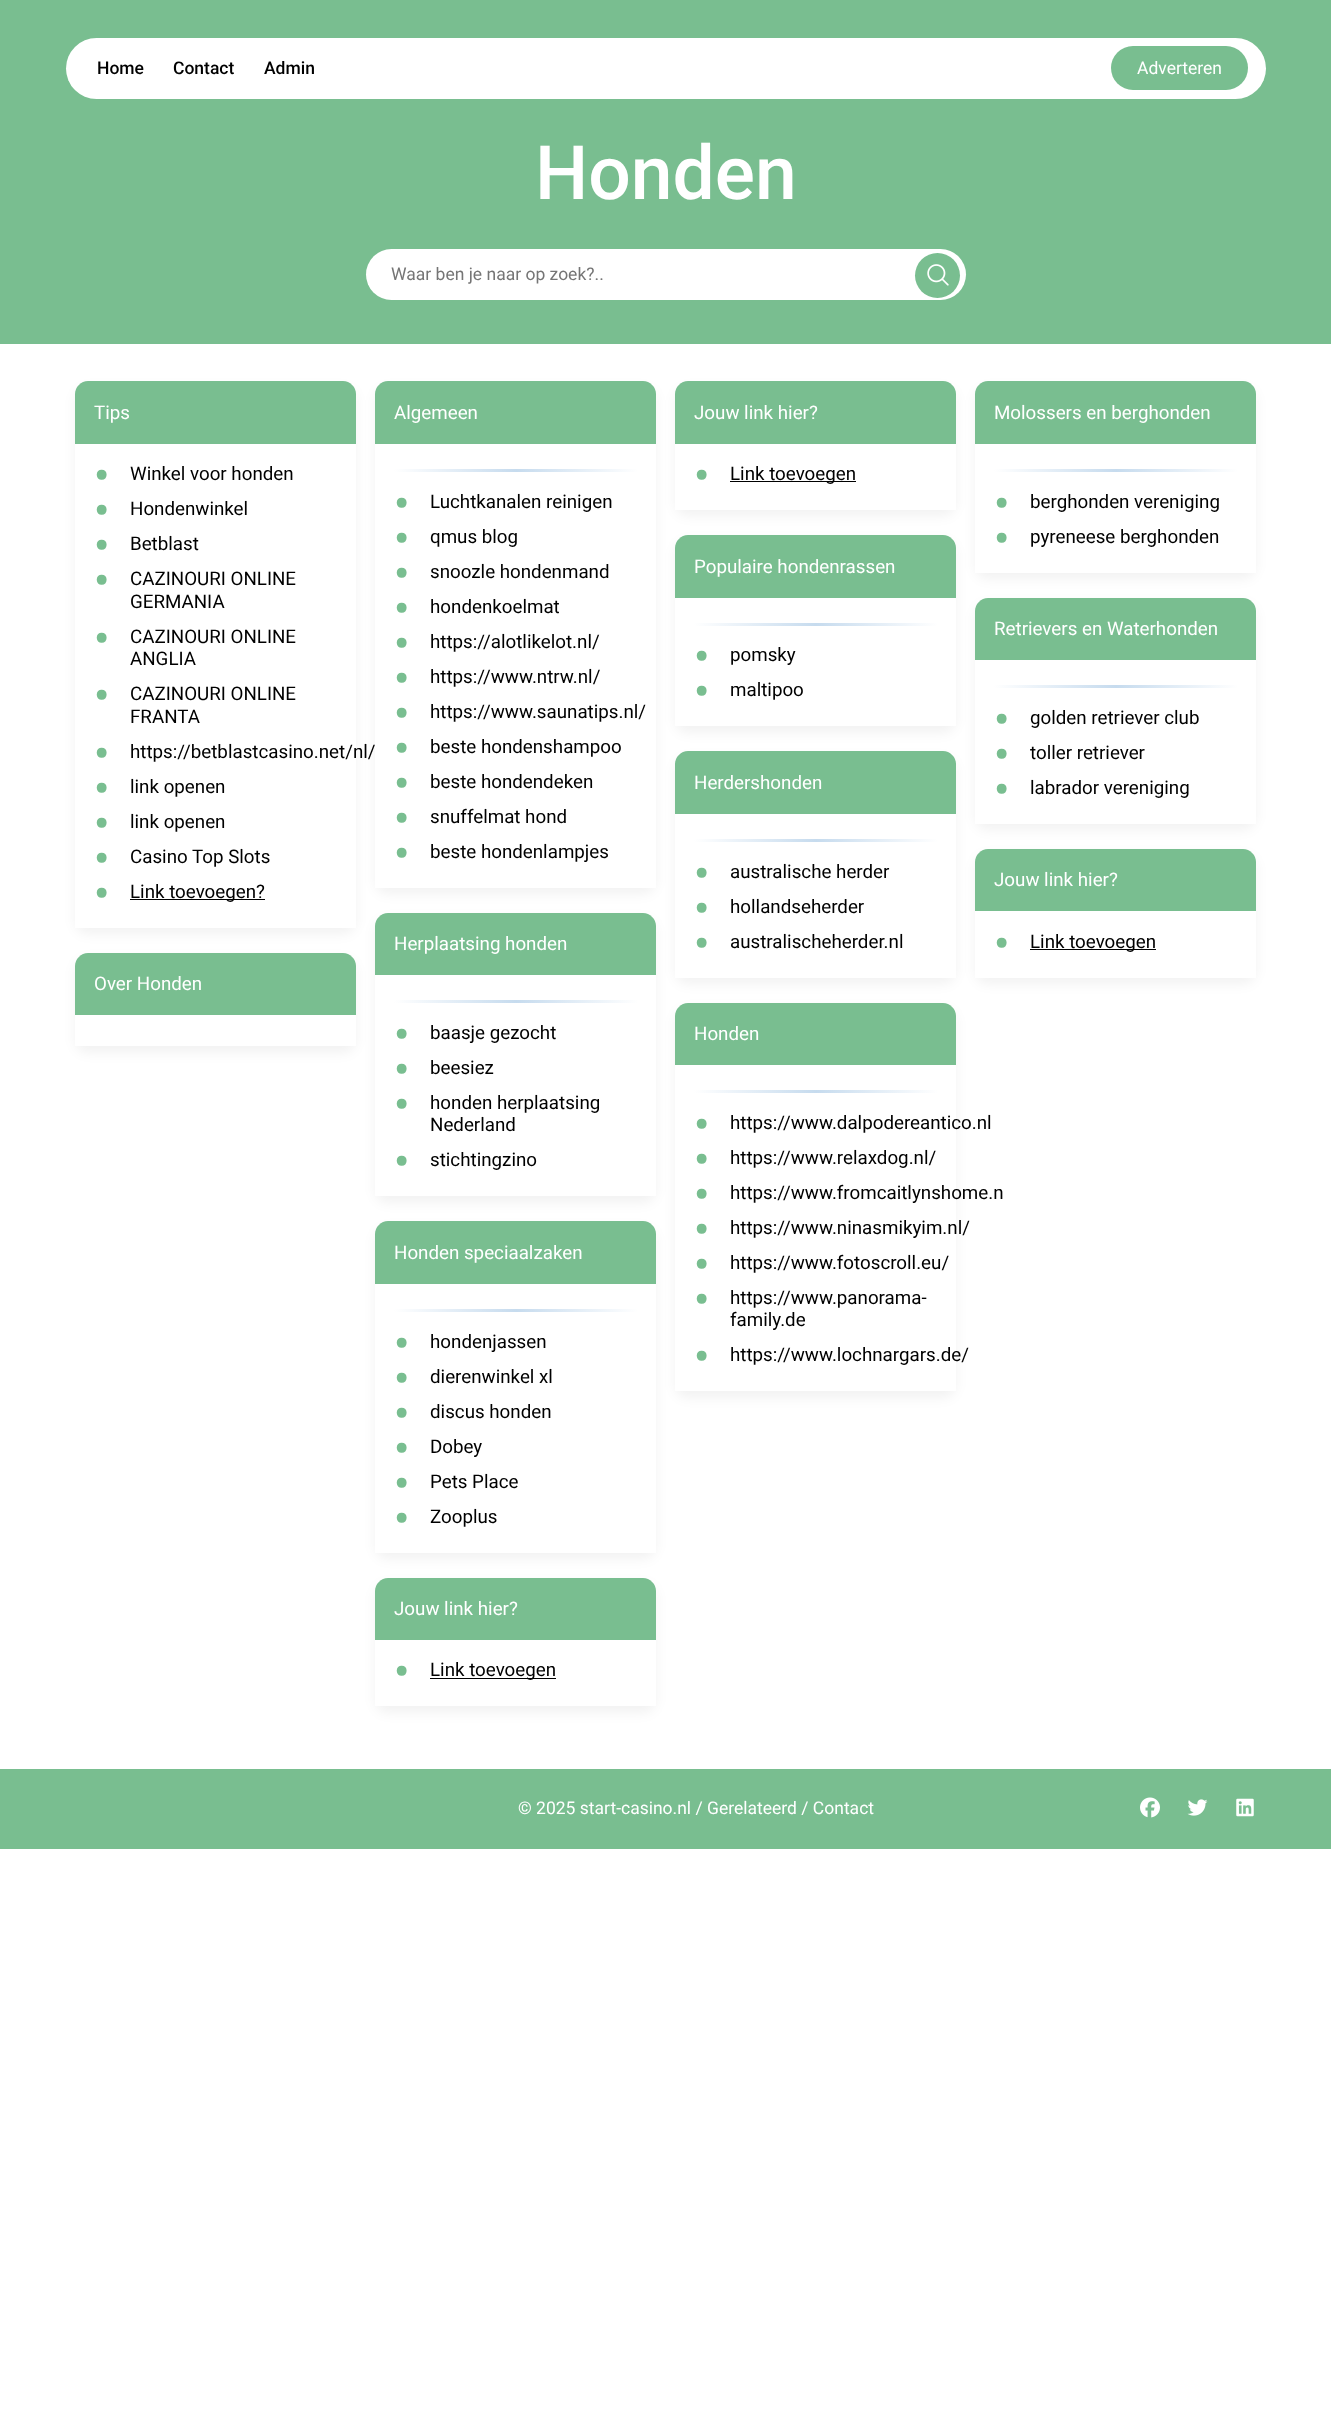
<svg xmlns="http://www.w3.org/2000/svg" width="1331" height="2416">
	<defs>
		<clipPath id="clip1"><path d="M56 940H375V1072H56ZM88 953H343C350 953 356 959 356 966V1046H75V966C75 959 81 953 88 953Z" clip-rule="evenodd" /></clipPath>
		<linearGradient id="g1" gradientUnits="userSpaceOnUse" x1="394" y1="470" x2="638" y2="470"><stop offset="0" stop-color="#FFFFFF" /><stop offset="0.5" stop-color="#C6DBEE" /><stop offset="1" stop-color="#FFFFFF" /></linearGradient>
		<clipPath id="clip2"><path d="M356 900H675V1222H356ZM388 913H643C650 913 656 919 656 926V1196H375V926C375 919 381 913 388 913Z" clip-rule="evenodd" /></clipPath>
		<linearGradient id="g2" gradientUnits="userSpaceOnUse" x1="394" y1="1001" x2="638" y2="1001"><stop offset="0" stop-color="#FFFFFF" /><stop offset="0.5" stop-color="#C6DBEE" /><stop offset="1" stop-color="#FFFFFF" /></linearGradient>
		<linearGradient id="g3" gradientUnits="userSpaceOnUse" x1="394" y1="1310" x2="638" y2="1310"><stop offset="0" stop-color="#FFFFFF" /><stop offset="0.5" stop-color="#C6DBEE" /><stop offset="1" stop-color="#FFFFFF" /></linearGradient>
		<clipPath id="clip3"><path d="M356 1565H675V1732H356ZM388 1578H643C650 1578 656 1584 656 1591V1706H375V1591C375 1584 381 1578 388 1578Z" clip-rule="evenodd" /></clipPath>
		<clipPath id="clip4"><path d="M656 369H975V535H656ZM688 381H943C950 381 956 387 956 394V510H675V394C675 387 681 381 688 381Z" clip-rule="evenodd" /></clipPath>
		<clipPath id="clip5"><path d="M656 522H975V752H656ZM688 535H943C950 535 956 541 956 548V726H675V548C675 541 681 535 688 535Z" clip-rule="evenodd" /></clipPath>
		<linearGradient id="g4" gradientUnits="userSpaceOnUse" x1="694" y1="624" x2="938" y2="624"><stop offset="0" stop-color="#FFFFFF" /><stop offset="0.5" stop-color="#C6DBEE" /><stop offset="1" stop-color="#FFFFFF" /></linearGradient>
		<linearGradient id="g5" gradientUnits="userSpaceOnUse" x1="694" y1="840" x2="938" y2="840"><stop offset="0" stop-color="#FFFFFF" /><stop offset="0.5" stop-color="#C6DBEE" /><stop offset="1" stop-color="#FFFFFF" /></linearGradient>
		<clipPath id="clip6"><path d="M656 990H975V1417H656ZM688 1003H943C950 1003 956 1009 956 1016V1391H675V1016C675 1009 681 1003 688 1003Z" clip-rule="evenodd" /></clipPath>
		<linearGradient id="g6" gradientUnits="userSpaceOnUse" x1="694" y1="1091" x2="938" y2="1091"><stop offset="0" stop-color="#FFFFFF" /><stop offset="0.5" stop-color="#C6DBEE" /><stop offset="1" stop-color="#FFFFFF" /></linearGradient>
		<linearGradient id="g7" gradientUnits="userSpaceOnUse" x1="994" y1="470" x2="1238" y2="470"><stop offset="0" stop-color="#FFFFFF" /><stop offset="0.5" stop-color="#C6DBEE" /><stop offset="1" stop-color="#FFFFFF" /></linearGradient>
		<linearGradient id="g8" gradientUnits="userSpaceOnUse" x1="994" y1="686" x2="1238" y2="686"><stop offset="0" stop-color="#FFFFFF" /><stop offset="0.5" stop-color="#C6DBEE" /><stop offset="1" stop-color="#FFFFFF" /></linearGradient>
	</defs>
	<rect width="100%" height="100%" fill="#FFFFFF" />
	<rect x="0" y="0" width="1331" height="344" fill="#79BE90" />
	<rect x="66" y="38" width="1200" height="61" rx="30.5" fill="#FFFFFF" />
	<g font-family="Roboto" font-size="17.5" font-weight="500" fill="#000000">
		<text x="97" y="74">Home</text>
		<text x="173" y="74">Contact</text>
		<text x="264" y="74">Admin</text>
	</g>
	<rect x="1111" y="46" width="137" height="44" rx="22" fill="#79BE90" />
	<text x="1137" y="74" font-family="Roboto" font-size="17.5" fill="#FFFFFF">Adverteren</text>
	<text x="535" y="199" font-family="Roboto" font-size="75" font-weight="500" fill="#FFFFFF">Honden</text>
	<rect x="366" y="249" width="600" height="51" rx="25.5" fill="#FFFFFF" />
	<text x="391" y="280" font-family="Roboto" font-size="17.5" fill="#757575">Waar ben je naar op zoek?..</text>
	<circle cx="937.5" cy="275.5" r="22.5" fill="#79BE90" />
	<image x="927" y="264" width="22" height="22" href="assets/img1.png" />
	<rect x="75" y="388" width="281" height="546" rx="13" fill="#000000" fill-opacity="0.05" filter="blur(6px)" />
	<path d="M88 381H343C350 381 356 387 356 394V928H75V394C75 387 81 381 88 381Z" fill="#FFFFFF" />
	<path d="M88 381H343C350 381 356 387 356 394V444H75V394C75 387 81 381 88 381Z" fill="#79BE90" />
	<text x="94" y="419" font-family="Roboto" font-size="18.75" fill="#FFFFFF">Tips</text>
	<text x="94" y="490" font-family="Roboto" font-size="42" font-weight="700" fill="#79BE90">•</text>
	<text x="130" y="480" font-family="Roboto" font-size="18.75" fill="#000000">Winkel voor honden</text>
	<text x="94" y="525" font-family="Roboto" font-size="42" font-weight="700" fill="#79BE90">•</text>
	<text x="130" y="515" font-family="Roboto" font-size="18.75" fill="#000000">Hondenwinkel</text>
	<text x="94" y="560" font-family="Roboto" font-size="42" font-weight="700" fill="#79BE90">•</text>
	<text x="130" y="550" font-family="Roboto" font-size="18.75" fill="#000000">Betblast</text>
	<text x="94" y="595" font-family="Roboto" font-size="42" font-weight="700" fill="#79BE90">•</text>
	<g font-family="Roboto" font-size="18.75" fill="#000000">
		<text x="130" y="585">CAZINOURI ONLINE</text>
		<text x="130" y="608">GERMANIA</text>
	</g>
	<text x="94" y="653" font-family="Roboto" font-size="42" font-weight="700" fill="#79BE90">•</text>
	<g font-family="Roboto" font-size="18.75" fill="#000000">
		<text x="130" y="643">CAZINOURI ONLINE</text>
		<text x="130" y="665">ANGLIA</text>
	</g>
	<text x="94" y="710" font-family="Roboto" font-size="42" font-weight="700" fill="#79BE90">•</text>
	<g font-family="Roboto" font-size="18.75" fill="#000000">
		<text x="130" y="700">CAZINOURI ONLINE</text>
		<text x="130" y="723">FRANTA</text>
	</g>
	<text x="94" y="768" font-family="Roboto" font-size="42" font-weight="700" fill="#79BE90">•</text>
	<text x="130" y="758" font-family="Roboto" font-size="18.75" fill="#000000">https://betblastcasino.net/nl/</text>
	<text x="94" y="803" font-family="Roboto" font-size="42" font-weight="700" fill="#79BE90">•</text>
	<text x="130" y="793" font-family="Roboto" font-size="18.75" fill="#000000">link openen</text>
	<text x="94" y="838" font-family="Roboto" font-size="42" font-weight="700" fill="#79BE90">•</text>
	<text x="130" y="828" font-family="Roboto" font-size="18.75" fill="#000000">link openen</text>
	<text x="94" y="873" font-family="Roboto" font-size="42" font-weight="700" fill="#79BE90">•</text>
	<text x="130" y="863" font-family="Roboto" font-size="18.75" fill="#000000">Casino Top Slots</text>
	<text x="94" y="908" font-family="Roboto" font-size="42" font-weight="700" fill="#79BE90">•</text>
	<rect x="130" y="899" width="135" height="1" fill="#000000" />
	<text x="130" y="898" font-family="Roboto" font-size="18.75" fill="#000000">Link toevoegen?</text>
	<g clip-path="url(#clip1)">
		<rect x="75" y="959" width="281" height="94" rx="13" fill="#000000" fill-opacity="0.05" filter="blur(6px)" />
	</g>
	<path d="M88 953H343C350 953 356 959 356 966V1015H75V966C75 959 81 953 88 953Z" fill="#79BE90" />
	<text x="94" y="990" font-family="Roboto" font-size="18.75" fill="#FFFFFF">Over Honden</text>
	<rect x="375" y="388" width="281" height="506" rx="13" fill="#000000" fill-opacity="0.05" filter="blur(6px)" />
	<path d="M388 381H643C650 381 656 387 656 394V888H375V394C375 387 381 381 388 381Z" fill="#FFFFFF" />
	<path d="M388 381H643C650 381 656 387 656 394V444H375V394C375 387 381 381 388 381Z" fill="#79BE90" />
	<text x="394" y="419" font-family="Roboto" font-size="18.75" fill="#FFFFFF">Algemeen</text>
	<rect x="394" y="469" width="244" height="3" fill="url(#g1)" />
	<text x="394" y="518" font-family="Roboto" font-size="42" font-weight="700" fill="#79BE90">•</text>
	<text x="430" y="508" font-family="Roboto" font-size="18.75" fill="#000000">Luchtkanalen reinigen</text>
	<text x="394" y="553" font-family="Roboto" font-size="42" font-weight="700" fill="#79BE90">•</text>
	<text x="430" y="543" font-family="Roboto" font-size="18.75" fill="#000000">qmus blog</text>
	<text x="394" y="588" font-family="Roboto" font-size="42" font-weight="700" fill="#79BE90">•</text>
	<text x="430" y="578" font-family="Roboto" font-size="18.75" fill="#000000">snoozle hondenmand</text>
	<text x="394" y="623" font-family="Roboto" font-size="42" font-weight="700" fill="#79BE90">•</text>
	<text x="430" y="613" font-family="Roboto" font-size="18.75" fill="#000000">hondenkoelmat</text>
	<text x="394" y="658" font-family="Roboto" font-size="42" font-weight="700" fill="#79BE90">•</text>
	<text x="430" y="648" font-family="Roboto" font-size="18.75" fill="#000000">https://alotlikelot.nl/</text>
	<text x="394" y="693" font-family="Roboto" font-size="42" font-weight="700" fill="#79BE90">•</text>
	<text x="430" y="683" font-family="Roboto" font-size="18.75" fill="#000000">https://www.ntrw.nl/</text>
	<text x="394" y="728" font-family="Roboto" font-size="42" font-weight="700" fill="#79BE90">•</text>
	<text x="430" y="718" font-family="Roboto" font-size="18.75" fill="#000000">https://www.saunatips.nl/</text>
	<text x="394" y="763" font-family="Roboto" font-size="42" font-weight="700" fill="#79BE90">•</text>
	<text x="430" y="753" font-family="Roboto" font-size="18.75" fill="#000000">beste hondenshampoo</text>
	<text x="394" y="798" font-family="Roboto" font-size="42" font-weight="700" fill="#79BE90">•</text>
	<text x="430" y="788" font-family="Roboto" font-size="18.75" fill="#000000">beste hondendeken</text>
	<text x="394" y="833" font-family="Roboto" font-size="42" font-weight="700" fill="#79BE90">•</text>
	<text x="430" y="823" font-family="Roboto" font-size="18.75" fill="#000000">snuffelmat hond</text>
	<text x="394" y="868" font-family="Roboto" font-size="42" font-weight="700" fill="#79BE90">•</text>
	<text x="430" y="858" font-family="Roboto" font-size="18.75" fill="#000000">beste hondenlampjes</text>
	<g clip-path="url(#clip2)">
		<rect x="375" y="919" width="281" height="284" rx="13" fill="#000000" fill-opacity="0.05" filter="blur(6px)" />
	</g>
	<path d="M388 913H643C650 913 656 919 656 926V975H375V926C375 919 381 913 388 913Z" fill="#79BE90" />
	<text x="394" y="950" font-family="Roboto" font-size="18.75" fill="#FFFFFF">Herplaatsing honden</text>
	<rect x="394" y="1000" width="244" height="3" fill="url(#g2)" />
	<text x="394" y="1049" font-family="Roboto" font-size="42" font-weight="700" fill="#79BE90">•</text>
	<text x="430" y="1039" font-family="Roboto" font-size="18.75" fill="#000000">baasje gezocht</text>
	<text x="394" y="1084" font-family="Roboto" font-size="42" font-weight="700" fill="#79BE90">•</text>
	<text x="430" y="1074" font-family="Roboto" font-size="18.75" fill="#000000">beesiez</text>
	<text x="394" y="1119" font-family="Roboto" font-size="42" font-weight="700" fill="#79BE90">•</text>
	<g font-family="Roboto" font-size="18.75" fill="#000000">
		<text x="430" y="1109">honden herplaatsing</text>
		<text x="430" y="1131">Nederland</text>
	</g>
	<text x="394" y="1176" font-family="Roboto" font-size="42" font-weight="700" fill="#79BE90">•</text>
	<text x="430" y="1166" font-family="Roboto" font-size="18.75" fill="#000000">stichtingzino</text>
	<rect x="375" y="1228" width="281" height="331" rx="13" fill="#000000" fill-opacity="0.05" filter="blur(6px)" />
	<path d="M388 1221H643C650 1221 656 1227 656 1234V1553H375V1234C375 1227 381 1221 388 1221Z" fill="#FFFFFF" />
	<path d="M388 1221H643C650 1221 656 1227 656 1234V1284H375V1234C375 1227 381 1221 388 1221Z" fill="#79BE90" />
	<text x="394" y="1259" font-family="Roboto" font-size="18.75" fill="#FFFFFF">Honden speciaalzaken</text>
	<rect x="394" y="1309" width="244" height="3" fill="url(#g3)" />
	<text x="394" y="1358" font-family="Roboto" font-size="42" font-weight="700" fill="#79BE90">•</text>
	<text x="430" y="1348" font-family="Roboto" font-size="18.75" fill="#000000">hondenjassen</text>
	<text x="394" y="1393" font-family="Roboto" font-size="42" font-weight="700" fill="#79BE90">•</text>
	<text x="430" y="1383" font-family="Roboto" font-size="18.75" fill="#000000">dierenwinkel xl</text>
	<text x="394" y="1428" font-family="Roboto" font-size="42" font-weight="700" fill="#79BE90">•</text>
	<text x="430" y="1418" font-family="Roboto" font-size="18.75" fill="#000000">discus honden</text>
	<text x="394" y="1463" font-family="Roboto" font-size="42" font-weight="700" fill="#79BE90">•</text>
	<text x="430" y="1453" font-family="Roboto" font-size="18.75" fill="#000000">Dobey</text>
	<text x="394" y="1498" font-family="Roboto" font-size="42" font-weight="700" fill="#79BE90">•</text>
	<text x="430" y="1488" font-family="Roboto" font-size="18.75" fill="#000000">Pets Place</text>
	<text x="394" y="1533" font-family="Roboto" font-size="42" font-weight="700" fill="#79BE90">•</text>
	<text x="430" y="1523" font-family="Roboto" font-size="18.75" fill="#000000">Zooplus</text>
	<g clip-path="url(#clip3)">
		<rect x="375" y="1584" width="281" height="129" rx="13" fill="#000000" fill-opacity="0.05" filter="blur(6px)" />
	</g>
	<path d="M388 1578H643C650 1578 656 1584 656 1591V1640H375V1591C375 1584 381 1578 388 1578Z" fill="#79BE90" />
	<text x="394" y="1615" font-family="Roboto" font-size="18.75" fill="#FFFFFF">Jouw link hier?</text>
	<text x="394" y="1686" font-family="Roboto" font-size="42" font-weight="700" fill="#79BE90">•</text>
	<rect x="430" y="1678" width="126" height="1" fill="#000000" />
	<text x="430" y="1676" font-family="Roboto" font-size="18.75" fill="#000000">Link toevoegen</text>
	<g clip-path="url(#clip4)">
		<rect x="675" y="388" width="281" height="128" rx="13" fill="#000000" fill-opacity="0.05" filter="blur(6px)" />
	</g>
	<path d="M688 381H943C950 381 956 387 956 394V444H675V394C675 387 681 381 688 381Z" fill="#79BE90" />
	<text x="694" y="419" font-family="Roboto" font-size="18.75" fill="#FFFFFF">Jouw link hier?</text>
	<text x="694" y="490" font-family="Roboto" font-size="42" font-weight="700" fill="#79BE90">•</text>
	<rect x="730" y="481" width="126" height="1" fill="#000000" />
	<text x="730" y="480" font-family="Roboto" font-size="18.75" fill="#000000">Link toevoegen</text>
	<g clip-path="url(#clip5)">
		<rect x="675" y="541" width="281" height="192" rx="13" fill="#000000" fill-opacity="0.05" filter="blur(6px)" />
	</g>
	<path d="M688 535H943C950 535 956 541 956 548V598H675V548C675 541 681 535 688 535Z" fill="#79BE90" />
	<text x="694" y="573" font-family="Roboto" font-size="18.75" fill="#FFFFFF">Populaire hondenrassen</text>
	<rect x="694" y="623" width="244" height="3" fill="url(#g4)" />
	<text x="694" y="671" font-family="Roboto" font-size="42" font-weight="700" fill="#79BE90">•</text>
	<text x="730" y="661" font-family="Roboto" font-size="18.75" fill="#000000">pomsky</text>
	<text x="694" y="706" font-family="Roboto" font-size="42" font-weight="700" fill="#79BE90">•</text>
	<text x="730" y="696" font-family="Roboto" font-size="18.75" fill="#000000">maltipoo</text>
	<rect x="675" y="758" width="281" height="226" rx="13" fill="#000000" fill-opacity="0.05" filter="blur(6px)" />
	<path d="M688 751H943C950 751 956 757 956 764V978H675V764C675 757 681 751 688 751Z" fill="#FFFFFF" />
	<path d="M688 751H943C950 751 956 757 956 764V814H675V764C675 757 681 751 688 751Z" fill="#79BE90" />
	<text x="694" y="789" font-family="Roboto" font-size="18.75" fill="#FFFFFF">Herdershonden</text>
	<rect x="694" y="839" width="244" height="3" fill="url(#g5)" />
	<text x="694" y="888" font-family="Roboto" font-size="42" font-weight="700" fill="#79BE90">•</text>
	<text x="730" y="878" font-family="Roboto" font-size="18.75" fill="#000000">australische herder</text>
	<text x="694" y="923" font-family="Roboto" font-size="42" font-weight="700" fill="#79BE90">•</text>
	<text x="730" y="913" font-family="Roboto" font-size="18.75" fill="#000000">hollandseherder</text>
	<text x="694" y="958" font-family="Roboto" font-size="42" font-weight="700" fill="#79BE90">•</text>
	<text x="730" y="948" font-family="Roboto" font-size="18.75" fill="#000000">australischeherder.nl</text>
	<g clip-path="url(#clip6)">
		<rect x="675" y="1009" width="281" height="389" rx="13" fill="#000000" fill-opacity="0.05" filter="blur(6px)" />
	</g>
	<path d="M688 1003H943C950 1003 956 1009 956 1016V1065H675V1016C675 1009 681 1003 688 1003Z" fill="#79BE90" />
	<text x="694" y="1040" font-family="Roboto" font-size="18.75" fill="#FFFFFF">Honden</text>
	<rect x="694" y="1090" width="244" height="3" fill="url(#g6)" />
	<text x="694" y="1139" font-family="Roboto" font-size="42" font-weight="700" fill="#79BE90">•</text>
	<text x="730" y="1129" font-family="Roboto" font-size="18.75" fill="#000000">https://www.dalpodereantico.nl</text>
	<text x="694" y="1174" font-family="Roboto" font-size="42" font-weight="700" fill="#79BE90">•</text>
	<text x="730" y="1164" font-family="Roboto" font-size="18.75" fill="#000000">https://www.relaxdog.nl/</text>
	<text x="694" y="1209" font-family="Roboto" font-size="42" font-weight="700" fill="#79BE90">•</text>
	<text x="730" y="1199" font-family="Roboto" font-size="18.75" fill="#000000">https://www.fromcaitlynshome.n</text>
	<text x="694" y="1244" font-family="Roboto" font-size="42" font-weight="700" fill="#79BE90">•</text>
	<text x="730" y="1234" font-family="Roboto" font-size="18.75" fill="#000000">https://www.ninasmikyim.nl/</text>
	<text x="694" y="1279" font-family="Roboto" font-size="42" font-weight="700" fill="#79BE90">•</text>
	<text x="730" y="1269" font-family="Roboto" font-size="18.75" fill="#000000">https://www.fotoscroll.eu/</text>
	<text x="694" y="1314" font-family="Roboto" font-size="42" font-weight="700" fill="#79BE90">•</text>
	<g font-family="Roboto" font-size="18.75" fill="#000000">
		<text x="730" y="1304">https://www.panorama-</text>
		<text x="730" y="1326">family.de</text>
	</g>
	<text x="694" y="1371" font-family="Roboto" font-size="42" font-weight="700" fill="#79BE90">•</text>
	<text x="730" y="1361" font-family="Roboto" font-size="18.75" fill="#000000">https://www.lochnargars.de/</text>
	<rect x="975" y="388" width="281" height="191" rx="13" fill="#000000" fill-opacity="0.05" filter="blur(6px)" />
	<path d="M988 381H1243C1250 381 1256 387 1256 394V573H975V394C975 387 981 381 988 381Z" fill="#FFFFFF" />
	<path d="M988 381H1243C1250 381 1256 387 1256 394V444H975V394C975 387 981 381 988 381Z" fill="#79BE90" />
	<text x="994" y="419" font-family="Roboto" font-size="18.75" fill="#FFFFFF">Molossers en berghonden</text>
	<rect x="994" y="469" width="244" height="3" fill="url(#g7)" />
	<text x="994" y="518" font-family="Roboto" font-size="42" font-weight="700" fill="#79BE90">•</text>
	<text x="1030" y="508" font-family="Roboto" font-size="18.75" fill="#000000">berghonden vereniging</text>
	<text x="994" y="553" font-family="Roboto" font-size="42" font-weight="700" fill="#79BE90">•</text>
	<text x="1030" y="543" font-family="Roboto" font-size="18.75" fill="#000000">pyreneese berghonden</text>
	<rect x="975" y="604" width="281" height="226" rx="13" fill="#000000" fill-opacity="0.05" filter="blur(6px)" />
	<path d="M988 598H1243C1250 598 1256 604 1256 611V824H975V611C975 604 981 598 988 598Z" fill="#FFFFFF" />
	<path d="M988 598H1243C1250 598 1256 604 1256 611V660H975V611C975 604 981 598 988 598Z" fill="#79BE90" />
	<text x="994" y="635" font-family="Roboto" font-size="18.75" fill="#FFFFFF">Retrievers en Waterhonden</text>
	<rect x="994" y="685" width="244" height="3" fill="url(#g8)" />
	<text x="994" y="734" font-family="Roboto" font-size="42" font-weight="700" fill="#79BE90">•</text>
	<text x="1030" y="724" font-family="Roboto" font-size="18.75" fill="#000000">golden retriever club</text>
	<text x="994" y="769" font-family="Roboto" font-size="42" font-weight="700" fill="#79BE90">•</text>
	<text x="1030" y="759" font-family="Roboto" font-size="18.75" fill="#000000">toller retriever</text>
	<text x="994" y="804" font-family="Roboto" font-size="42" font-weight="700" fill="#79BE90">•</text>
	<text x="1030" y="794" font-family="Roboto" font-size="18.75" fill="#000000">labrador vereniging</text>
	<rect x="975" y="855" width="281" height="129" rx="13" fill="#000000" fill-opacity="0.05" filter="blur(6px)" />
	<path d="M988 849H1243C1250 849 1256 855 1256 862V978H975V862C975 855 981 849 988 849Z" fill="#FFFFFF" />
	<path d="M988 849H1243C1250 849 1256 855 1256 862V911H975V862C975 855 981 849 988 849Z" fill="#79BE90" />
	<text x="994" y="886" font-family="Roboto" font-size="18.75" fill="#FFFFFF">Jouw link hier?</text>
	<text x="994" y="958" font-family="Roboto" font-size="42" font-weight="700" fill="#79BE90">•</text>
	<rect x="1030" y="949" width="126" height="1" fill="#000000" />
	<text x="1030" y="948" font-family="Roboto" font-size="18.75" fill="#000000">Link toevoegen</text>
	<rect x="0" y="1769" width="1331" height="80" fill="#79BE90" />
	<text x="518" y="1814" font-family="Roboto" font-size="17.5" fill="#FFFFFF">© 2025 start-casino.nl / Gerelateerd / Contact</text>
	<image x="1140" y="1797" width="20" height="21" href="assets/img2.png" />
	<image x="1187" y="1799" width="21" height="17" href="assets/img3.png" />
	<image x="1236" y="1798" width="18" height="19" href="assets/img4.png" />
</svg>
